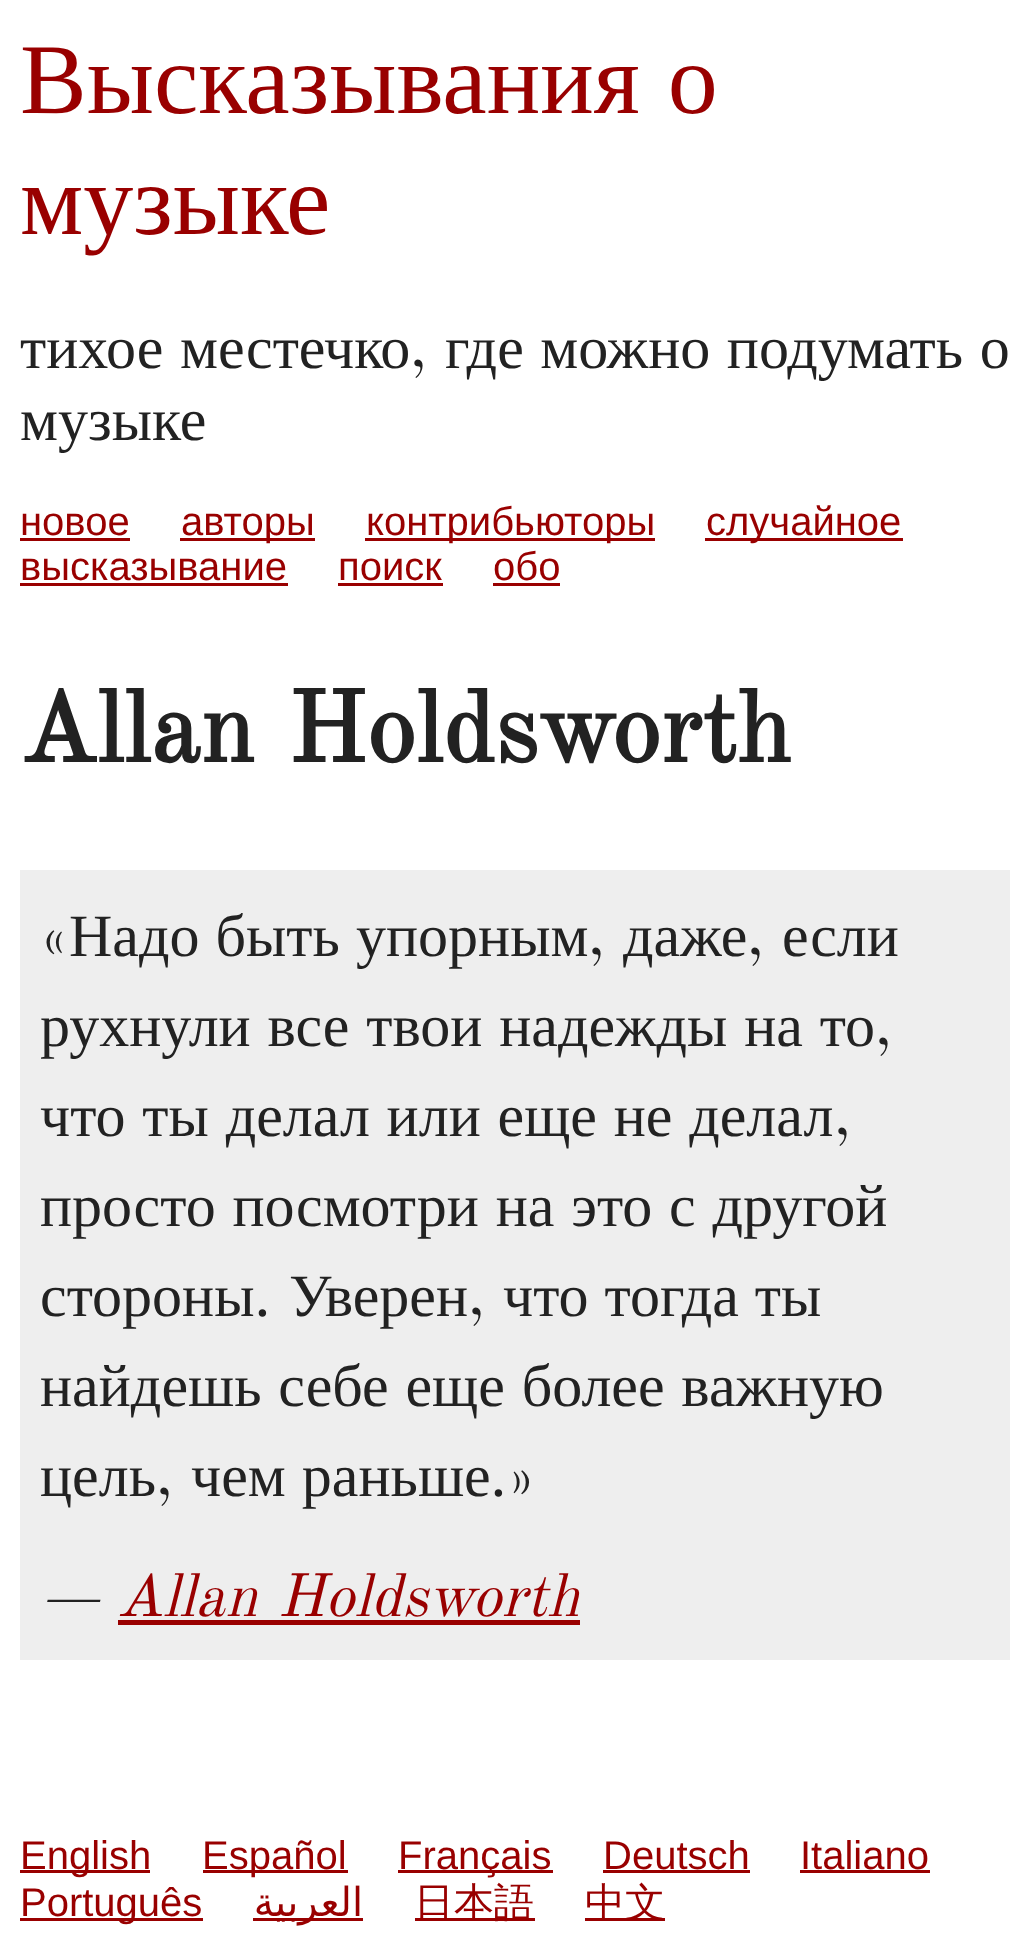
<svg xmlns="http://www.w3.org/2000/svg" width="1029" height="1950">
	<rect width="100%" height="100%" fill="#FFFFFF" />
	<g font-family="Liberation Serif" font-size="100" fill="#990000">
		<text x="20" y="113" word-spacing="3">Высказывания о</text>
		<text x="20" y="234">музыке</text>
	</g>
	<text x="20" y="368" word-spacing="1.5" font-family="Liberation Serif" font-size="60" fill="#222222">тихое местечко</text>
	<text x="410" y="368" font-family="Old Standard TT" font-size="60" fill="#222222">,</text>
	<g font-family="Liberation Serif" font-size="60" fill="#222222">
		<text x="445" y="368" word-spacing="1.5">где можно подумать о</text>
		<text x="20" y="440">музыке</text>
	</g>
	<text x="20" y="535" font-family="Liberation Sans" font-size="40" fill="#990000">новое</text>
	<rect x="20" y="538" width="110" height="3" fill="#990000" />
	<rect x="180" y="538" width="135" height="3" fill="#990000" />
	<text x="181" y="535" font-family="Liberation Sans" font-size="40" fill="#990000">авторы</text>
	<rect x="365" y="538" width="290" height="3" fill="#990000" />
	<text x="366" y="535" font-family="Liberation Sans" font-size="40" fill="#990000">контрибьюторы</text>
	<rect x="705" y="538" width="198" height="3" fill="#990000" />
	<g font-family="Liberation Sans" font-size="40" fill="#990000">
		<text x="706" y="535">случайное</text>
		<text x="20" y="580">высказывание</text>
	</g>
	<rect x="20" y="583" width="268" height="3" fill="#990000" />
	<text x="338" y="580" font-family="Liberation Sans" font-size="40" fill="#990000">поиск</text>
	<rect x="338" y="583" width="105" height="3" fill="#990000" />
	<text x="493" y="580" font-family="Liberation Sans" font-size="40" fill="#990000">обо</text>
	<rect x="493" y="583" width="67" height="3" fill="#990000" />
	<text x="20" y="762" word-spacing="5" font-family="Old Standard TT" font-size="100" font-weight="700" fill="#222222">Allan Holdsworth</text>
	<rect x="20" y="870" width="990" height="790" fill="#EEEEEE" />
	<text x="40" y="956" font-family="Old Standard TT" font-size="60" fill="#222222">«</text>
	<g font-family="Liberation Serif" font-size="60" fill="#222222">
		<text x="69" y="956" word-spacing="1">Надо быть упорным</text>
		<text x="623" y="956">даже</text>
		<text x="782" y="956">если</text>
	</g>
	<g font-family="Old Standard TT" font-size="60" fill="#222222">
		<text x="588" y="956">,</text>
		<text x="747" y="956">,</text>
	</g>
	<text x="40" y="1046" word-spacing="1.75" font-family="Liberation Serif" font-size="60" fill="#222222">рухнули все твои надежды на то</text>
	<text x="875" y="1046" font-family="Old Standard TT" font-size="60" fill="#222222">,</text>
	<text x="40" y="1136" word-spacing="1.75" font-family="Liberation Serif" font-size="60" fill="#222222">что ты делал или еще не делал</text>
	<text x="834" y="1136" font-family="Old Standard TT" font-size="60" fill="#222222">,</text>
	<g font-family="Liberation Serif" font-size="60" fill="#222222">
		<text x="40" y="1226" word-spacing="1.75">просто посмотри на это с другой</text>
		<text x="40" y="1316">стороны</text>
	</g>
	<text x="254" y="1316" font-family="Old Standard TT" font-size="60" fill="#222222">.</text>
	<text x="289" y="1316" font-family="Liberation Serif" font-size="60" fill="#222222">Уверен</text>
	<text x="468" y="1316" font-family="Old Standard TT" font-size="60" fill="#222222">,</text>
	<g font-family="Liberation Serif" font-size="60" fill="#222222">
		<text x="503" y="1316" word-spacing="1">что тогда ты</text>
		<text x="40" y="1406" word-spacing="1.75">найдешь себе еще более важную</text>
		<text x="40" y="1496">цель</text>
	</g>
	<text x="156" y="1496" font-family="Old Standard TT" font-size="60" fill="#222222">,</text>
	<text x="191" y="1496" word-spacing="1" font-family="Liberation Serif" font-size="60" fill="#222222">чем раньше</text>
	<text x="490" y="1496" font-family="Old Standard TT" font-size="60" fill="#222222">.»</text>
	<text x="40" y="1616" font-family="Old Standard TT" font-size="60" font-style="italic" fill="#222222">—</text>
	<text x="117" y="1616" word-spacing="3" font-family="Old Standard TT" font-size="60" font-style="italic" fill="#990000">Allan Holdsworth</text>
	<rect x="118" y="1620" width="462" height="5" fill="#990000" />
	<rect x="20" y="1870" width="130" height="3" fill="#990000" />
	<text x="20" y="1869" font-family="Liberation Sans" font-size="40" fill="#990000">English</text>
	<rect x="203" y="1870" width="145" height="3" fill="#990000" />
	<text x="202" y="1869" font-family="Liberation Sans" font-size="40" fill="#990000">Español</text>
	<rect x="398" y="1870" width="155" height="3" fill="#990000" />
	<g font-family="Liberation Sans" font-size="40" fill="#990000">
		<text x="398" y="1869">Français</text>
		<text x="603" y="1869">Deutsch</text>
	</g>
	<rect x="603" y="1870" width="147" height="3" fill="#990000" />
	<text x="800" y="1869" font-family="Liberation Sans" font-size="40" fill="#990000">Italiano</text>
	<rect x="800" y="1870" width="130" height="3" fill="#990000" />
	<rect x="20" y="1918" width="183" height="3" fill="#990000" />
	<text x="20" y="1916" font-family="Liberation Sans" font-size="40" fill="#990000">Português</text>
	<rect x="253" y="1918" width="110" height="3" fill="#990000" />
	<text x="363" y="1916" font-family="DejaVu Sans" font-size="40" direction="rtl" fill="#990000">العربية</text>
	<rect x="415" y="1918" width="120" height="3" fill="#990000" />
	<text x="414" y="1916" font-family="WenQuanYi Zen Hei" font-size="40" font-weight="500" fill="#990000">日本語</text>
	<rect x="585" y="1918" width="80" height="3" fill="#990000" />
	<text x="585" y="1916" font-family="WenQuanYi Zen Hei" font-size="40" font-weight="500" fill="#990000">中文</text>
</svg>
